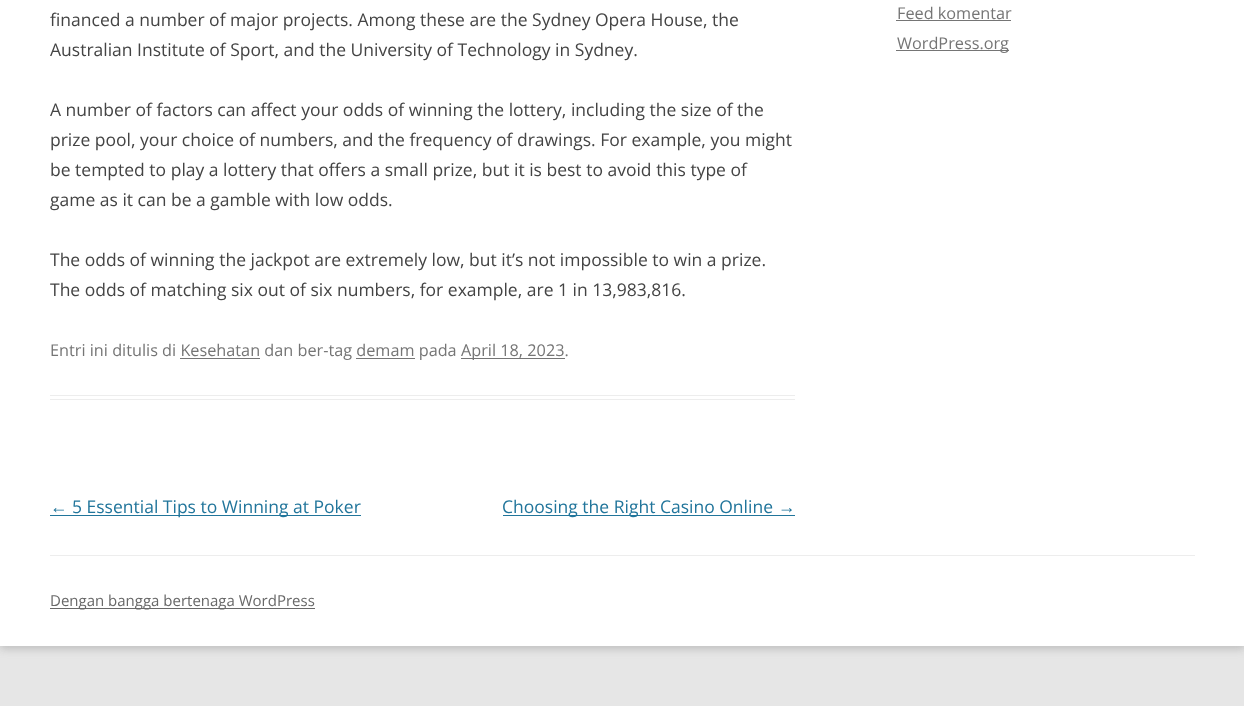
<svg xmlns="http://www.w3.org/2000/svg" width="1244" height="706">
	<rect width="100%" height="100%" fill="#E6E6E6" />
	<rect x="0" y="-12" width="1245" height="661" fill="#646464" fill-opacity="0.3" filter="blur(4px)" />
	<rect x="0" y="0" width="1244" height="646" fill="#FFFFFF" />
	<rect x="50" y="395" width="745" height="1" fill="#EDEDED" />
	<rect x="50" y="399" width="745" height="1" fill="#EDEDED" />
	<g font-family="Open Sans" font-size="17.5" fill="#444444">
		<text x="50" y="26">financed a number of major projects. Among these are the Sydney Opera House, the</text>
		<text x="50" y="56">Australian Institute of Sport, and the University of Technology in Sydney.</text>
		<text x="50" y="116">A number of factors can affect your odds of winning the lottery, including the size of the</text>
		<text x="50" y="146">prize pool, your choice of numbers, and the frequency of drawings. For example, you might</text>
		<text x="50" y="176">be tempted to play a lottery that offers a small prize, but it is best to avoid this type of</text>
		<text x="50" y="206">game as it can be a gamble with low odds.</text>
		<text x="50" y="266">The odds of winning the jackpot are extremely low, but it’s not impossible to win a prize.</text>
		<text x="50" y="296">The odds of matching six out of six numbers, for example, are 1 in 13,983,816.</text>
	</g>
	<text x="50" y="356" font-family="Open Sans" font-size="16.25" fill="#757575">Entri ini ditulis di Kesehatan dan ber-tag demam pada</text>
	<rect x="461" y="358" width="104" height="1" fill="#757575" />
	<text x="461" y="356" font-family="Open Sans" font-size="16.25" fill="#757575">April 18, 2023.</text>
	<rect x="180" y="358" width="80" height="1" fill="#757575" />
	<rect x="356" y="358" width="59" height="1" fill="#757575" />
	<text x="50" y="513" font-family="Liberation Sans" font-size="17.5" fill="#21759B">←</text>
	<rect x="50" y="515" width="311" height="1" fill="#21759B" />
	<text x="72" y="513" font-family="Open Sans" font-size="17.5" fill="#21759B">5 Essential Tips to Winning at Poker</text>
	<rect x="503" y="515" width="292" height="1" fill="#21759B" />
	<text x="502" y="513" font-family="Open Sans" font-size="17.5" fill="#21759B">Choosing the Right Casino Online</text>
	<text x="778" y="513" font-family="Liberation Sans" font-size="17.5" fill="#21759B">→</text>
	<text x="897" y="19" font-family="Open Sans" font-size="16.25" fill="#757575">Feed komentar</text>
	<rect x="896" y="20" width="115" height="1" fill="#757575" />
	<rect x="896" y="50" width="113" height="1" fill="#757575" />
	<text x="897" y="49" font-family="Open Sans" font-size="16.25" fill="#757575">WordPress.org</text>
	<rect x="50" y="555" width="1145" height="1" fill="#EDEDED" />
	<rect x="50" y="608" width="265" height="1" fill="#686868" />
	<text x="50" y="606" font-family="Open Sans" font-size="15" fill="#686868">Dengan bangga bertenaga WordPress</text>
</svg>
